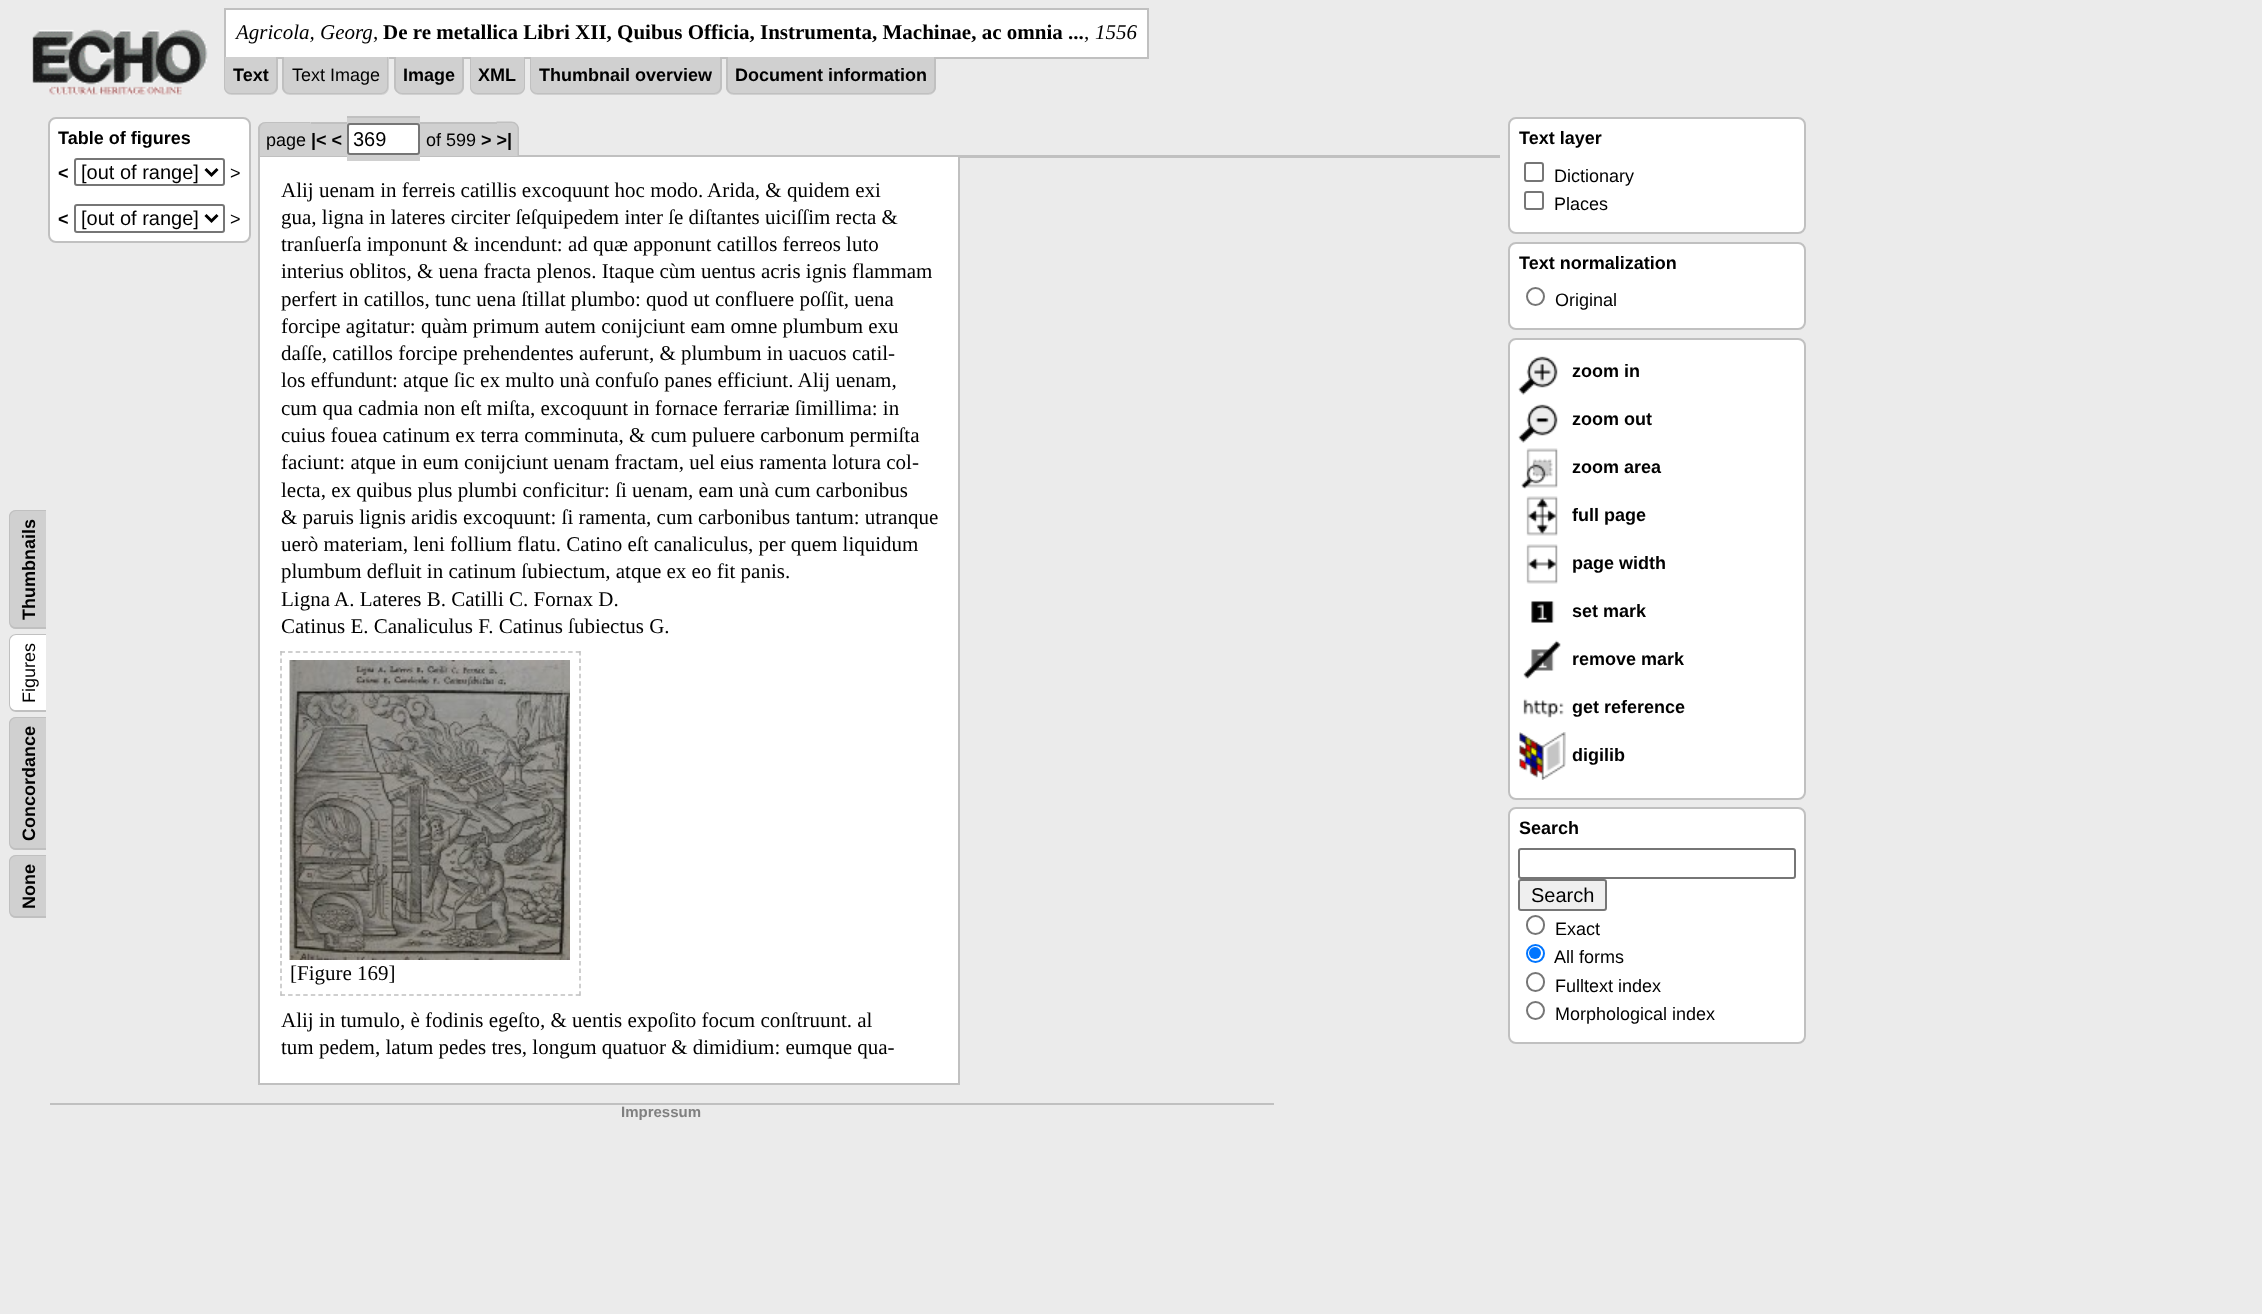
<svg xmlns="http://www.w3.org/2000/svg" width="2262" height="1314">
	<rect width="100%" height="100%" fill="#EBEBEB" />
	<image x="32" y="29" width="176" height="66" href="assets/img1.png" />
	<rect x="225" y="9" width="923" height="49" fill="#FFFFFF" stroke="#C0C0C0" stroke-width="2" />
	<text x="236" y="39" font-family="Liberation Serif" font-size="21" font-style="italic" fill="#000000">Agricola, Georg</text>
	<text x="373" y="39" font-family="Liberation Serif" font-size="21" fill="#000000">,</text>
	<text x="383" y="39" font-family="Liberation Serif" font-size="21" font-weight="700" fill="#000000">De re metallica Libri XII, Quibus Officia, Instrumenta, Machinae, ac omnia ...</text>
	<text x="1084" y="39" font-family="Liberation Serif" font-size="21" fill="#000000">,</text>
	<text x="1095" y="39" font-family="Liberation Serif" font-size="21" font-style="italic" fill="#000000">1556</text>
	<path d="M224 57H278V87C278 91.5 274.5 95 270 95H232C227.5 95 224 91.5 224 87Z" fill="#D0D0D0" />
	<path d="M224 57H278V87C278 91 274 94 270 94H231C227 94 224 91 224 87ZM225 57H276V87C276 90 273 93 270 93H231C228 93 225 90 225 87Z" fill="#C0C0C0" fill-rule="evenodd" />
	<text x="233" y="81" font-family="Liberation Sans" font-size="18" font-weight="700" fill="#000000">Text</text>
	<path d="M282 57H389V87C389 91.5 385.5 95 381 95H290C285.5 95 282 91.5 282 87Z" fill="#D0D0D0" />
	<path d="M282 57H388V87C388 91 385 94 381 94H290C285 94 282 91 282 87ZM284 57H387V87C387 90 384 93 381 93H290C286 93 284 90 284 87Z" fill="#C0C0C0" fill-rule="evenodd" />
	<text x="292" y="81" font-family="Liberation Sans" font-size="18" fill="#000000">Text Image</text>
	<path d="M395 57H464V87C464 91.5 460.5 95 456 95H403C398.5 95 395 91.5 395 87Z" fill="#D0D0D0" />
	<path d="M394 57H464V87C464 91 460 94 456 94H402C398 94 394 91 394 87ZM396 57H462V87C462 90 459 93 456 93H402C399 93 396 90 396 87Z" fill="#C0C0C0" fill-rule="evenodd" />
	<text x="403" y="81" font-family="Liberation Sans" font-size="18" font-weight="700" fill="#000000">Image</text>
	<path d="M470 57H525V87C525 91.5 521.5 95 517 95H478C473.5 95 470 91.5 470 87Z" fill="#D0D0D0" />
	<path d="M470 57H525V87C525 91 522 94 518 94H477C473 94 470 91 470 87ZM471 57H524V87C524 90 521 93 518 93H477C474 93 471 90 471 87Z" fill="#C0C0C0" fill-rule="evenodd" />
	<text x="478" y="81" font-family="Liberation Sans" font-size="18" font-weight="700" fill="#000000">XML</text>
	<path d="M530 57H722V87C722 91.5 718.5 95 714 95H538C533.5 95 530 91.5 530 87Z" fill="#D0D0D0" />
	<path d="M530 57H722V87C722 91 718 94 714 94H537C533 94 530 91 530 87ZM531 57H720V87C720 90 717 93 714 93H537C534 93 531 90 531 87Z" fill="#C0C0C0" fill-rule="evenodd" />
	<text x="539" y="81" font-family="Liberation Sans" font-size="18" font-weight="700" fill="#000000">Thumbnail overview</text>
	<path d="M726 57H936V87C936 91.5 932.5 95 928 95H734C729.5 95 726 91.5 726 87Z" fill="#D0D0D0" />
	<path d="M726 57H936V87C936 91 933 94 928 94H734C729 94 726 91 726 87ZM728 57H934V87C934 90 932 93 928 93H734C730 93 728 90 728 87Z" fill="#C0C0C0" fill-rule="evenodd" />
	<text x="735" y="81" font-family="Liberation Sans" font-size="18" font-weight="700" fill="#000000">Document information</text>
	<rect x="49" y="118" width="201" height="124" rx="7" fill="#FFFFFF" stroke="#C0C0C0" stroke-width="2" />
	<g font-family="Liberation Sans" font-size="18" font-weight="700" fill="#000000">
		<text x="58" y="144">Table of figures</text>
		<text x="58" y="179">&lt;</text>
	</g>
	<rect x="75" y="159" width="149" height="26" rx="2" fill="none" stroke="#767676" stroke-width="2" />
	<path d="M205.5 169L211.5 175L217.5 169" fill="none" stroke="#000000" stroke-width="3" />
	<text x="81" y="179" font-family="Liberation Sans" font-size="20" fill="#000000">[out of range]</text>
	<text x="230" y="179" font-family="Liberation Sans" font-size="18" fill="#000000">&gt;</text>
	<text x="58" y="225" font-family="Liberation Sans" font-size="18" font-weight="700" fill="#000000">&lt;</text>
	<rect x="75" y="205" width="149" height="27" rx="2" fill="none" stroke="#767676" stroke-width="2" />
	<path d="M205.5 215L211.5 221L217.5 215" fill="none" stroke="#000000" stroke-width="3" />
	<text x="81" y="225" font-family="Liberation Sans" font-size="20" fill="#000000">[out of range]</text>
	<text x="230" y="225" font-family="Liberation Sans" font-size="18" fill="#000000">&gt;</text>
	<path d="M9 621V517C9 513 12 510 16 510H46V629H16C12 629 9 626 9 621Z" fill="#D0D0D0" />
	<path d="M9 621V517C9 513 12 510 16 510H46V629H16C12 629 9 626 9 621ZM10 621V517C10 514 13 511 16 511H46V627H16C13 627 10 625 10 621Z" fill="#C0C0C0" fill-rule="evenodd" />
	<text x="35" y="620" transform="rotate(-90 35 620)" font-family="Liberation Sans" font-size="18" font-weight="700" fill="#000000">Thumbnails</text>
	<path d="M9 704V641C9 637 12 634 16 634H46V712H16C12 712 9 709 9 704Z" fill="#FFFFFF" />
	<path d="M9 704V641C9 637 12 634 16 634H46V712H16C12 712 9 709 9 704ZM10 704V641C10 638 13 635 16 635H46V710H16C13 710 10 708 10 704Z" fill="#C0C0C0" fill-rule="evenodd" />
	<text x="35" y="703" transform="rotate(-90 35 703)" font-family="Liberation Sans" font-size="18" fill="#000000">Figures</text>
	<path d="M9 842V724C9 720 12 717 16 717H46V850H16C12 850 9 847 9 842Z" fill="#D0D0D0" />
	<path d="M9 842V724C9 720 12 717 16 717H46V850H16C12 850 9 847 9 842ZM10 842V724C10 721 13 718 16 718H46V848H16C13 848 10 846 10 842Z" fill="#C0C0C0" fill-rule="evenodd" />
	<text x="35" y="841" transform="rotate(-90 35 841)" font-family="Liberation Sans" font-size="18" font-weight="700" fill="#000000">Concordance</text>
	<path d="M9 910V862C9 858 12 855 16 855H46V918H16C12 918 9 915 9 910Z" fill="#D0D0D0" />
	<path d="M9 910V862C9 858 12 855 16 855H46V918H16C12 918 9 915 9 910ZM10 910V862C10 859 13 856 16 856H46V916H16C13 916 10 914 10 910Z" fill="#C0C0C0" fill-rule="evenodd" />
	<text x="35" y="909" transform="rotate(-90 35 909)" font-family="Liberation Sans" font-size="18" font-weight="700" fill="#000000">None</text>
	<rect x="259" y="156" width="700" height="928" fill="#FFFFFF" stroke="#C0C0C0" stroke-width="2" />
	<path d="M266 122H311V156H258V130C258 125.5 261.5 122 266 122Z" fill="#D0D0D0" />
	<path d="M266 122H310V156H258V129C258 125 261 122 266 122ZM266 123H310V156H260V129C260 126 262 123 266 123Z" fill="#C0C0C0" fill-rule="evenodd" />
	<rect x="311" y="124" width="16" height="32" fill="#D0D0D0" />
	<rect x="311" y="122" width="16" height="2" fill="#C0C0C0" />
	<rect x="327" y="122" width="5" height="34" fill="#D0D0D0" />
	<rect x="327" y="122" width="15" height="2" fill="#C0C0C0" />
	<rect x="332" y="124" width="10" height="32" fill="#D0D0D0" />
	<rect x="342" y="122" width="5" height="34" fill="#D0D0D0" />
	<rect x="342" y="122" width="5" height="2" fill="#C0C0C0" />
	<rect x="347" y="118" width="73" height="43" fill="#D0D0D0" />
	<rect x="347" y="116" width="73" height="2" fill="#C0C0C0" />
	<rect x="420" y="122" width="6" height="34" fill="#D0D0D0" />
	<rect x="420" y="122" width="71" height="2" fill="#C0C0C0" />
	<rect x="426" y="124" width="65" height="32" fill="#D0D0D0" />
	<rect x="491" y="122" width="6" height="34" fill="#D0D0D0" />
	<rect x="491" y="122" width="6" height="2" fill="#C0C0C0" />
	<path d="M497 122H511C515.5 122 519 125.5 519 130V156H497Z" fill="#D0D0D0" />
	<path d="M496.5 121.5H511.5C515.5 121.5 519 125 519 129V156H496.5ZM496.5 123H511.5C515 123 517.5 125.5 517.5 129V156H496.5Z" fill="#C0C0C0" fill-rule="evenodd" />
	<text x="266" y="146" font-family="Liberation Sans" font-size="18" fill="#000000">page</text>
	<text x="311" y="146" font-family="Liberation Sans" font-size="18" font-weight="700" fill="#000000">|&lt; &lt;</text>
	<rect x="348" y="124" width="71" height="30" rx="2" fill="#FFFFFF" stroke="#767676" stroke-width="2" />
	<text x="353" y="146" font-family="Liberation Sans" font-size="20" fill="#000000">369</text>
	<text x="426" y="146" font-family="Liberation Sans" font-size="18" fill="#000000">of 599</text>
	<text x="481" y="146" font-family="Liberation Sans" font-size="18" font-weight="700" fill="#000000">&gt; &gt;|</text>
	<rect x="960" y="155" width="540" height="3" fill="#C0C0C0" />
	<g font-family="Liberation Serif" font-size="21" fill="#000000">
		<text x="281" y="197">Alij uenam in ferreis catillis excoquunt hoc modo.</text>
		<text x="707" y="197">Arida, &amp; quidem exi</text>
		<text x="281" y="224">gua, ligna in lateres circiter ſeſquipedem inter ſe diſtantes uiciſſim recta &amp;</text>
		<text x="281" y="251">tranſuerſa imponunt &amp; incendunt: ad quæ apponunt catillos ferreos luto</text>
		<text x="281" y="278">interius oblitos, &amp; uena fracta plenos. Itaque cùm uentus acris ignis flammam</text>
		<text x="281" y="306">perfert in catillos, tunc uena ſtillat plumbo: quod ut confluere poſſit, uena</text>
		<text x="281" y="333">forcipe agitatur: quàm primum autem conijciunt eam omne plumbum exu</text>
		<text x="281" y="360">daſſe, catillos forcipe prehendentes auferunt, &amp; plumbum in uacuos catil-</text>
		<text x="281" y="387">los effundunt: atque ſic ex multo unà confuſo panes efficiunt. Alij uenam,</text>
		<text x="281" y="415">cum qua cadmia non eſt miſta, excoquunt in fornace ferrariæ ſimillima: in</text>
		<text x="281" y="442">cuius fouea catinum ex terra comminuta, &amp; cum puluere carbonum permiſta</text>
		<text x="281" y="469">faciunt: atque in eum conijciunt uenam fractam, uel eius ramenta lotura col-</text>
		<text x="281" y="497">lecta, ex quibus plus plumbi conficitur: ſi uenam, eam unà cum carbonibus</text>
		<text x="281" y="524">&amp; paruis lignis aridis excoquunt: ſi ramenta, cum carbonibus tantum: utranque</text>
		<text x="281" y="551">uerò materiam, leni follium flatu. Catino eſt canaliculus, per quem liquidum</text>
		<text x="281" y="578">plumbum defluit in catinum ſubiectum, atque ex eo fit panis.</text>
		<text x="281" y="606">Ligna A. Lateres B. Catilli C. Fornax D.</text>
		<text x="281" y="633">Catinus E. Canaliculus F. Catinus ſubiectus G.</text>
	</g>
	<path d="M280.5 652H580.5" fill="none" stroke="#C0C0C0" stroke-width="1.5" stroke-dasharray="4.5 3.07" />
	<path d="M580 651V996" fill="none" stroke="#C0C0C0" stroke-width="1.5" stroke-dasharray="4.5 3.06" />
	<path d="M280.5 995H580.5" fill="none" stroke="#C0C0C0" stroke-width="1.5" stroke-dasharray="4.5 3.07" />
	<path d="M281 651V996" fill="none" stroke="#C0C0C0" stroke-width="1.5" stroke-dasharray="4.5 3.06" />
	<image x="289" y="660" width="281" height="300" href="assets/img2.png" />
	<g font-family="Liberation Serif" font-size="21" fill="#000000">
		<text x="290" y="980">[Figure 169]</text>
		<text x="281" y="1027">Alij in tumulo, è fodinis egeſto, &amp; uentis expoſito focum conſtruunt. al</text>
		<text x="281" y="1054">tum pedem, latum pedes tres, longum quatuor &amp; dimidium: eumque qua-</text>
	</g>
	<rect x="1509" y="118" width="296" height="115" rx="7" fill="#FFFFFF" stroke="#C0C0C0" stroke-width="2" />
	<text x="1519" y="144" font-family="Liberation Sans" font-size="18" font-weight="700" fill="#000000">Text layer</text>
	<rect x="1525" y="163" width="18" height="18" rx="2" fill="none" stroke="#767676" stroke-width="2" />
	<text x="1554" y="182" font-family="Liberation Sans" font-size="18" fill="#000000">Dictionary</text>
	<rect x="1525" y="192" width="18" height="17" rx="2" fill="none" stroke="#767676" stroke-width="2" />
	<text x="1554" y="210" font-family="Liberation Sans" font-size="18" fill="#000000">Places</text>
	<rect x="1509" y="243" width="296" height="86" rx="7" fill="#FFFFFF" stroke="#C0C0C0" stroke-width="2" />
	<text x="1519" y="269" font-family="Liberation Sans" font-size="18" font-weight="700" fill="#000000">Text normalization</text>
	<circle cx="1535.5" cy="296.5" r="8.5" fill="none" stroke="#767676" stroke-width="2" />
	<text x="1555" y="306" font-family="Liberation Sans" font-size="18" fill="#000000">Original</text>
	<rect x="1509" y="339" width="296" height="460" rx="7" fill="#FFFFFF" stroke="#C0C0C0" stroke-width="2" />
	<image x="1518" y="356" width="40" height="39" href="assets/img3.png" />
	<text x="1572" y="377" font-family="Liberation Sans" font-size="18" font-weight="700" fill="#000000">zoom in</text>
	<image x="1518" y="404" width="40" height="39" href="assets/img4.png" />
	<text x="1572" y="425" font-family="Liberation Sans" font-size="18" font-weight="700" fill="#000000">zoom out</text>
	<image x="1521" y="448" width="37" height="41" href="assets/img5.png" />
	<text x="1572" y="473" font-family="Liberation Sans" font-size="18" font-weight="700" fill="#000000">zoom area</text>
	<image x="1526" y="496" width="32" height="40" href="assets/img6.png" />
	<text x="1572" y="521" font-family="Liberation Sans" font-size="18" font-weight="700" fill="#000000">full page</text>
	<image x="1526" y="544" width="32" height="40" href="assets/img7.png" />
	<text x="1572" y="569" font-family="Liberation Sans" font-size="18" font-weight="700" fill="#000000">page width</text>
	<image x="1531" y="601" width="24" height="22" href="assets/img8.png" />
	<text x="1572" y="617" font-family="Liberation Sans" font-size="18" font-weight="700" fill="#000000">set mark</text>
	<image x="1523" y="640" width="38" height="39" href="assets/img9.png" />
	<text x="1572" y="665" font-family="Liberation Sans" font-size="18" font-weight="700" fill="#000000">remove mark</text>
	<image x="1523" y="698" width="41" height="20" href="assets/img10.png" />
	<text x="1572" y="713" font-family="Liberation Sans" font-size="18" font-weight="700" fill="#000000">get reference</text>
	<image x="1519" y="732" width="47" height="48" href="assets/img11.png" />
	<text x="1572" y="761" font-family="Liberation Sans" font-size="18" font-weight="700" fill="#000000">digilib</text>
	<rect x="1509" y="808" width="296" height="235" rx="7" fill="#FFFFFF" stroke="#C0C0C0" stroke-width="2" />
	<text x="1519" y="834" font-family="Liberation Sans" font-size="18" font-weight="700" fill="#000000">Search</text>
	<rect x="1519" y="849" width="276" height="29" rx="2" fill="none" stroke="#767676" stroke-width="2" />
	<rect x="1519" y="880" width="87" height="30" rx="2" fill="#EFEFEF" stroke="#767676" stroke-width="2" />
	<text x="1531" y="902" font-family="Liberation Sans" font-size="20" fill="#000000">Search</text>
	<rect x="1527" y="916" width="17" height="18" rx="8.5" fill="none" stroke="#767676" stroke-width="2" />
	<text x="1555" y="935" font-family="Liberation Sans" font-size="18" fill="#000000">Exact</text>
	<circle cx="1535.5" cy="953.5" r="8.5" fill="none" stroke="#0075FF" stroke-width="2" />
	<circle cx="1535" cy="953" r="6" fill="#0075FF" />
	<text x="1554" y="963" font-family="Liberation Sans" font-size="18" fill="#000000">All forms</text>
	<rect x="1527" y="973" width="17" height="18" rx="8.5" fill="none" stroke="#767676" stroke-width="2" />
	<text x="1555" y="992" font-family="Liberation Sans" font-size="18" fill="#000000">Fulltext index</text>
	<circle cx="1535.5" cy="1010.5" r="8.5" fill="none" stroke="#767676" stroke-width="2" />
	<text x="1555" y="1020" font-family="Liberation Sans" font-size="18" fill="#000000">Morphological index</text>
	<rect x="50" y="1103" width="1224" height="2" fill="#C0C0C0" />
	<text x="621" y="1117" font-family="Liberation Sans" font-size="15" font-weight="700" fill="#808080">Impressum</text>
</svg>
